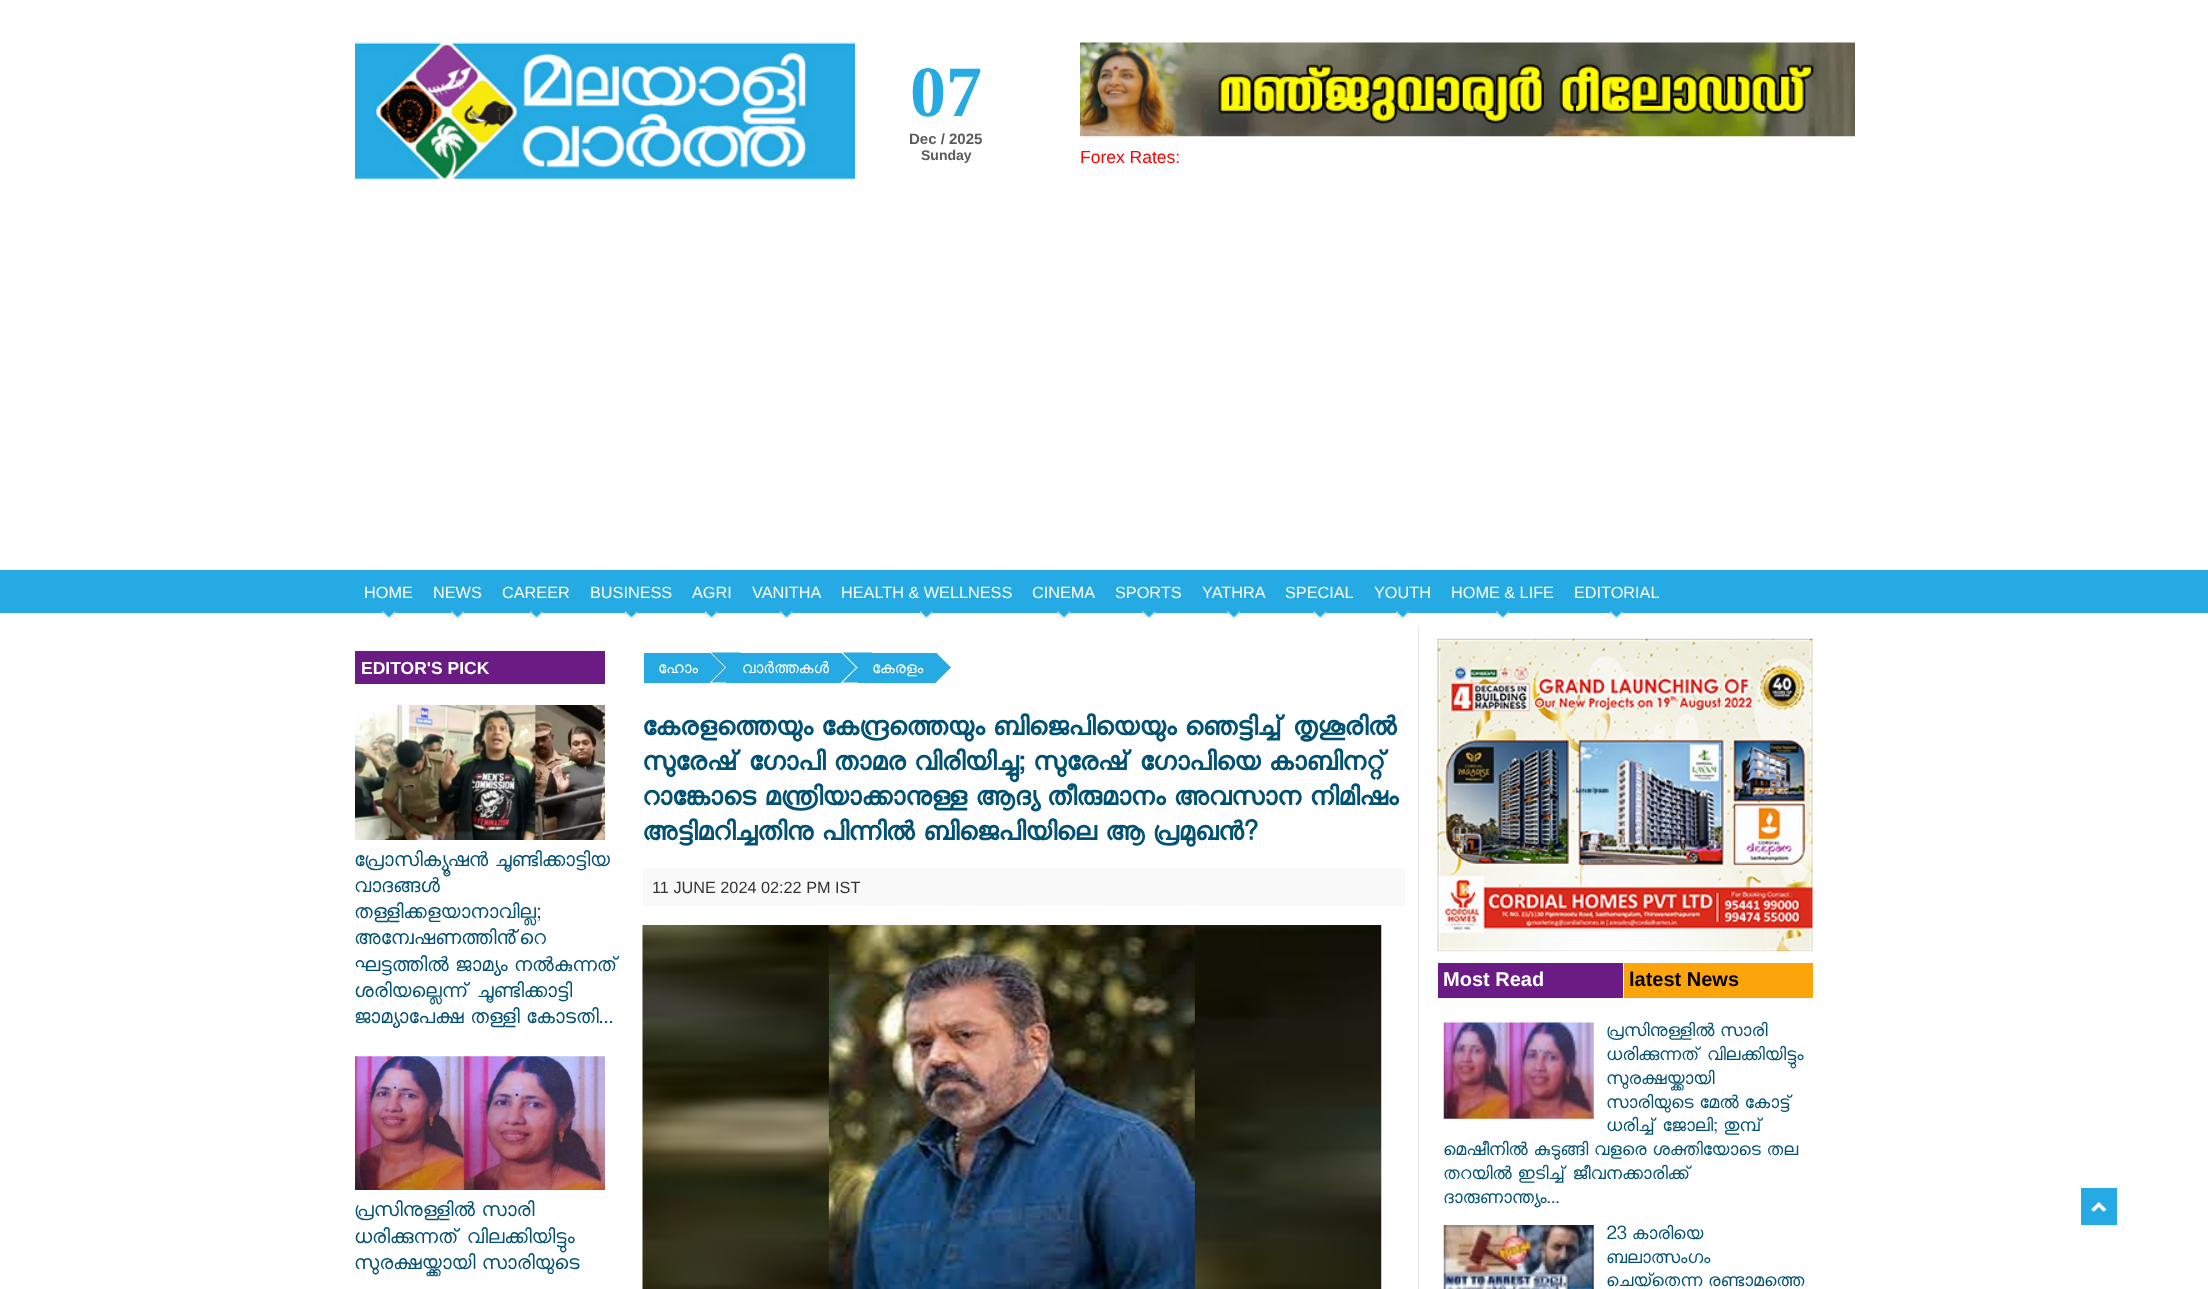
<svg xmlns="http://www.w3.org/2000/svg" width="2208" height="1289">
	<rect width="100%" height="100%" fill="#FFFFFF" />
	<image x="355" y="42" width="500" height="137" href="assets/img1.png" />
	<text x="910" y="116" font-family="Liberation Serif" font-size="72" font-weight="700" fill="#25AAE3">07</text>
	<text x="909" y="144" font-family="Liberation Sans" font-size="15" font-weight="700" fill="#5C5B5B">Dec / 2025</text>
	<text x="921" y="160" font-family="Liberation Sans" font-size="14" font-weight="700" fill="#5C5B5B">Sunday</text>
	<image x="1080" y="42" width="775" height="95" href="assets/img2.png" />
	<text x="1080" y="163" font-family="Liberation Sans" font-size="17.5" fill="#FF0000">Forex Rates:</text>
	<rect x="0" y="570" width="2208" height="43" fill="#25AAE3" />
	<text x="364" y="598" font-family="Liberation Sans" font-size="16.25" fill="#FFFFFF">HOME</text>
	<image x="382" y="611" width="13" height="7" href="assets/img3.png" />
	<text x="433" y="598" font-family="Liberation Sans" font-size="16.25" fill="#FFFFFF">NEWS</text>
	<image x="451" y="611" width="13" height="7" href="assets/img4.png" />
	<text x="502" y="598" font-family="Liberation Sans" font-size="16.25" fill="#FFFFFF">CAREER</text>
	<image x="530" y="611" width="13" height="7" href="assets/img5.png" />
	<text x="590" y="598" font-family="Liberation Sans" font-size="16.25" fill="#FFFFFF">BUSINESS</text>
	<image x="625" y="611" width="13" height="7" href="assets/img6.png" />
	<text x="692" y="598" font-family="Liberation Sans" font-size="16.25" fill="#FFFFFF">AGRI</text>
	<image x="705" y="611" width="13" height="7" href="assets/img5.png" />
	<text x="752" y="598" font-family="Liberation Sans" font-size="16.25" fill="#FFFFFF">VANITHA</text>
	<image x="780" y="611" width="13" height="7" href="assets/img5.png" />
	<text x="841" y="598" font-family="Liberation Sans" font-size="16.25" fill="#FFFFFF">HEALTH &amp; WELLNESS</text>
	<image x="920" y="611" width="13" height="7" href="assets/img6.png" />
	<text x="1032" y="598" font-family="Liberation Sans" font-size="16.25" fill="#FFFFFF">CINEMA</text>
	<image x="1057" y="611" width="13" height="7" href="assets/img3.png" />
	<text x="1115" y="598" font-family="Liberation Sans" font-size="16.25" fill="#FFFFFF">SPORTS</text>
	<image x="1142" y="611" width="13" height="7" href="assets/img3.png" />
	<text x="1202" y="598" font-family="Liberation Sans" font-size="16.25" fill="#FFFFFF">YATHRA</text>
	<image x="1227" y="611" width="13" height="7" href="assets/img7.png" />
	<text x="1285" y="598" font-family="Liberation Sans" font-size="16.25" fill="#FFFFFF">SPECIAL</text>
	<image x="1313" y="611" width="14" height="7" href="assets/img8.png" />
	<text x="1374" y="598" font-family="Liberation Sans" font-size="16.25" fill="#FFFFFF">YOUTH</text>
	<image x="1396" y="611" width="13" height="7" href="assets/img4.png" />
	<text x="1451" y="598" font-family="Liberation Sans" font-size="16.25" fill="#FFFFFF">HOME &amp; LIFE</text>
	<image x="1496" y="611" width="13" height="7" href="assets/img4.png" />
	<text x="1574" y="598" font-family="Liberation Sans" font-size="16.25" fill="#FFFFFF">EDITORIAL</text>
	<image x="1610" y="611" width="13" height="7" href="assets/img6.png" />
	<rect x="1418" y="626" width="1" height="663" fill="#E8E8E8" />
	<rect x="355" y="651" width="250" height="33" fill="#6A1C84" />
	<text x="361" y="674" font-family="Liberation Sans" font-size="17.5" font-weight="700" fill="#FFFFFF">EDITOR'S PICK</text>
	<image x="355" y="705" width="250" height="135" href="assets/img9.png" />
	<g font-family="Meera" font-size="23.75" fill="#005173">
		<text x="354" y="866">പ്രോസിക്യൂഷൻ ചൂണ്ടിക്കാട്ടിയ</text>
		<text x="354" y="892">വാദങ്ങൾ</text>
		<text x="354" y="918">തള്ളിക്കളയാനാവില്ല;</text>
		<text x="354" y="944">അന്വേഷണത്തിൻ്റെ</text>
		<text x="354" y="971">ഘട്ടത്തിൽ ജാമ്യം നൽകുന്നത്</text>
		<text x="354" y="997">ശരിയല്ലെന്ന് ചൂണ്ടിക്കാട്ടി</text>
		<text x="354" y="1023">ജാമ്യാപേക്ഷ തള്ളി കോടതി...</text>
	</g>
	<image x="355" y="1056" width="250" height="134" href="assets/img10.png" />
	<g font-family="Meera" font-size="23.75" fill="#005173">
		<text x="354" y="1216">പ്രസിനുള്ളിൽ സാരി</text>
		<text x="354" y="1243">ധരിക്കുന്നത് വിലക്കിയിട്ടും</text>
		<text x="354" y="1269">സുരക്ഷയ്ക്കായി സാരിയുടെ</text>
	</g>
	<rect x="644" y="653" width="66" height="30" fill="#25AAE3" />
	<text x="658" y="673" font-family="Meera" font-size="18.75" fill="#FFFFFF">ഹോം</text>
	<path d="M710 682.5V652.5L725 667.5Z" fill="#25AAE3" />
	<rect x="741" y="653" width="100" height="30" fill="#25AAE3" />
	<path d="M711 652.5H741L726 667.5Z" fill="#25AAE3" />
	<rect x="726" y="653" width="15" height="30" fill="#25AAE3" />
	<path d="M741 682.5H711L726 667.5Z" fill="#25AAE3" />
	<text x="742" y="673" font-family="Meera" font-size="18.75" fill="#FFFFFF">വാര്‍ത്തകള്‍</text>
	<path d="M841 682.5V652.5L856 667.5Z" fill="#25AAE3" />
	<rect x="873" y="653" width="63" height="30" fill="#25AAE3" />
	<path d="M842.5 652.5H872.5L857.5 667.5Z" fill="#25AAE3" />
	<rect x="858" y="653" width="15" height="30" fill="#25AAE3" />
	<path d="M872.5 682.5H842.5L857.5 667.5Z" fill="#25AAE3" />
	<text x="872" y="673" font-family="Meera" font-size="18.75" fill="#FFFFFF">കേരളം</text>
	<path d="M936 682.5V652.5L951 667.5Z" fill="#25AAE3" />
	<g font-family="Meera" font-size="31.25" font-weight="700" fill="#005173">
		<text x="642" y="735">കേരളത്തെയും കേന്ദ്രത്തെയും ബിജെപിയെയും ഞെട്ടിച്ച് തൃശൂരില്‍</text>
		<text x="642" y="770">സുരേഷ് ഗോപി താമര വിരിയിച്ചു; സുരേഷ് ഗോപിയെ കാബിനറ്റ്</text>
		<text x="642" y="805">റാങ്കോടെ മന്ത്രിയാക്കാനുള്ള ആദ്യ തീരുമാനം അവസാന നിമിഷം</text>
		<text x="642" y="840">അട്ടിമറിച്ചതിനു പിന്നില്‍ ബിജെപിയിലെ ആ പ്രമുഖന്‍?</text>
	</g>
	<rect x="643" y="868" width="762" height="38" fill="#F9F9F9" />
	<text x="652" y="893" font-family="Liberation Sans" font-size="16.25" fill="#333333">11 JUNE 2024 02:22 PM IST</text>
	<image x="642" y="925" width="740" height="364" href="assets/img11.png" />
	<image x="1437" y="638" width="376" height="314" href="assets/img12.png" />
	<rect x="1438" y="963" width="185" height="35" fill="#6A1C84" />
	<text x="1443" y="986" font-family="Liberation Sans" font-size="20" font-weight="700" fill="#FFFFFF">Most Read</text>
	<rect x="1624" y="963" width="189" height="35" fill="#FBA40B" />
	<text x="1629" y="986" font-family="Liberation Sans" font-size="20" font-weight="700" fill="#000000">latest News</text>
	<g font-family="Meera" font-size="21.25" fill="#005173">
		<text x="1606" y="1036">പ്രസിനുള്ളിൽ സാരി</text>
		<text x="1606" y="1060">ധരിക്കുന്നത് വിലക്കിയിട്ടും</text>
		<text x="1606" y="1084">സുരക്ഷയ്ക്കായി</text>
		<text x="1606" y="1108">സാരിയുടെ മേൽ കോട്ട്</text>
		<text x="1606" y="1131">ധരിച്ച് ജോലി; തുമ്പ്</text>
		<text x="1443" y="1155">മെഷീനിൽ കുടുങ്ങി വളരെ ശക്തിയോടെ തല</text>
		<text x="1443" y="1179">തറയിൽ ഇടിച്ച് ജീവനക്കാരിക്ക്</text>
		<text x="1443" y="1203">ദാരുണാന്ത്യം...</text>
	</g>
	<image x="1443" y="1022" width="151" height="97" href="assets/img13.png" />
	<image x="1443" y="1225" width="151" height="64" href="assets/img14.png" />
	<g font-family="Meera" font-size="21.25" fill="#005173">
		<text x="1606" y="1239">23 കാരിയെ</text>
		<text x="1606" y="1263">ബലാത്സംഗം</text>
		<text x="1606" y="1286">ചെയ്തെന്ന രണ്ടാമത്തെ</text>
	</g>
	<rect x="2081" y="1188" width="36" height="37" fill="#25AAE3" />
	<image x="2091" y="1202" width="16" height="10" href="assets/img15.png" />
</svg>
